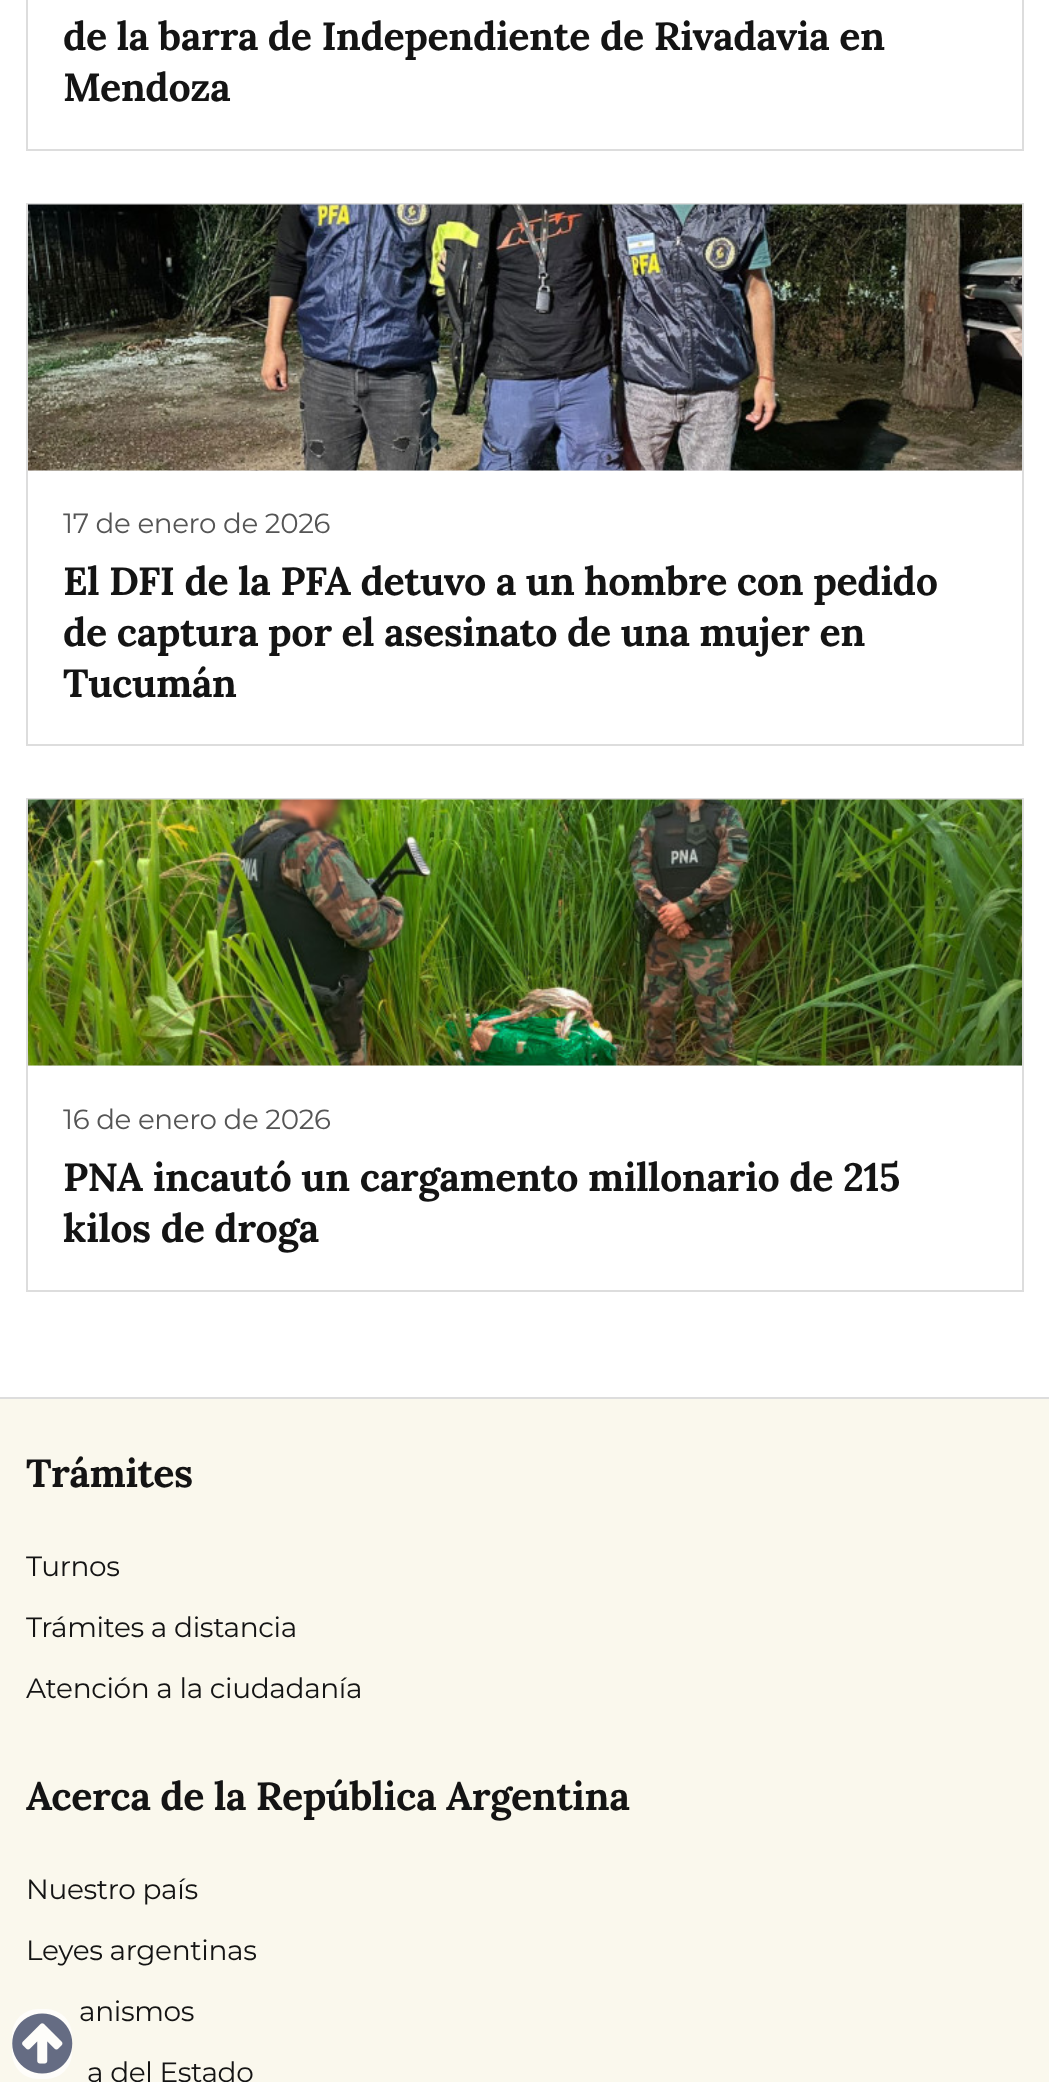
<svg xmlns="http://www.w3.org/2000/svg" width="1049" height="2082">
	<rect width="100%" height="100%" fill="#FFFFFF" />
	<rect x="27" y="-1" width="996" height="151" fill="none" stroke="#DDDDDD" stroke-width="2" />
	<g font-family="Lora" font-size="39.4" font-weight="700" letter-spacing="-0.45" fill="#141414">
		<text x="63" y="50">de la barra de Independiente de Rivadavia en</text>
		<text x="63" y="101">Mendoza</text>
	</g>
	<rect x="27" y="204" width="996" height="541" fill="none" stroke="#DDDDDD" stroke-width="2" />
	<rect x="28" y="470" width="994" height="1" fill="#F5F5F5" />
	<image x="28" y="204" width="994" height="267" href="assets/img1.png" />
	<text x="63" y="533" font-family="Montserrat" font-size="27.75" letter-spacing="-0.35" fill="#555555">17 de enero de 2026</text>
	<g font-family="Lora" font-size="39.4" font-weight="700" letter-spacing="-0.45" fill="#141414">
		<text x="63" y="595">El DFI de la PFA detuvo a un hombre con pedido</text>
		<text x="63" y="646">de captura por el asesinato de una mujer en</text>
		<text x="63" y="697">Tucumán</text>
	</g>
	<rect x="27" y="799" width="996" height="492" fill="none" stroke="#DDDDDD" stroke-width="2" />
	<rect x="28" y="1065" width="994" height="1" fill="#F5F5F5" />
	<image x="28" y="799" width="994" height="267" href="assets/img2.png" />
	<text x="63" y="1129" font-family="Montserrat" font-size="27.75" letter-spacing="-0.35" fill="#555555">16 de enero de 2026</text>
	<g font-family="Lora" font-size="39.4" font-weight="700" letter-spacing="-0.45" fill="#141414">
		<text x="63" y="1191">PNA incautó un cargamento millonario de 215</text>
		<text x="63" y="1242">kilos de droga</text>
	</g>
	<rect x="0" y="1399" width="1049" height="683" fill="#FAF8ED" />
	<rect x="0" y="1397" width="1049" height="2" fill="#DDDDDD" />
	<text x="26" y="1487" font-family="Lora" font-size="39.4" font-weight="700" letter-spacing="-0.45" fill="#141414">Trámites</text>
	<g font-family="Montserrat" font-size="28" letter-spacing="-0.35" fill="#141414">
		<text x="26" y="1576">Turnos</text>
		<text x="26" y="1637">Trámites a distancia</text>
		<text x="26" y="1698">Atención a la ciudadanía</text>
	</g>
	<text x="26" y="1810" font-family="Lora" font-size="39.4" font-weight="700" letter-spacing="-0.45" fill="#141414">Acerca de la República Argentina</text>
	<g font-family="Montserrat" font-size="28" letter-spacing="-0.35" fill="#141414">
		<text x="26" y="1899">Nuestro país</text>
		<text x="26" y="1960">Leyes argentinas</text>
		<text x="79" y="2021">anismos</text>
		<text x="87" y="2082">a del Estado</text>
	</g>
	<rect x="12" y="2009" width="60" height="70" rx="26" fill="#FFFFFF" fill-opacity="0.7" />
	<image x="12" y="2013" width="61" height="61" href="assets/img3.png" />
</svg>
